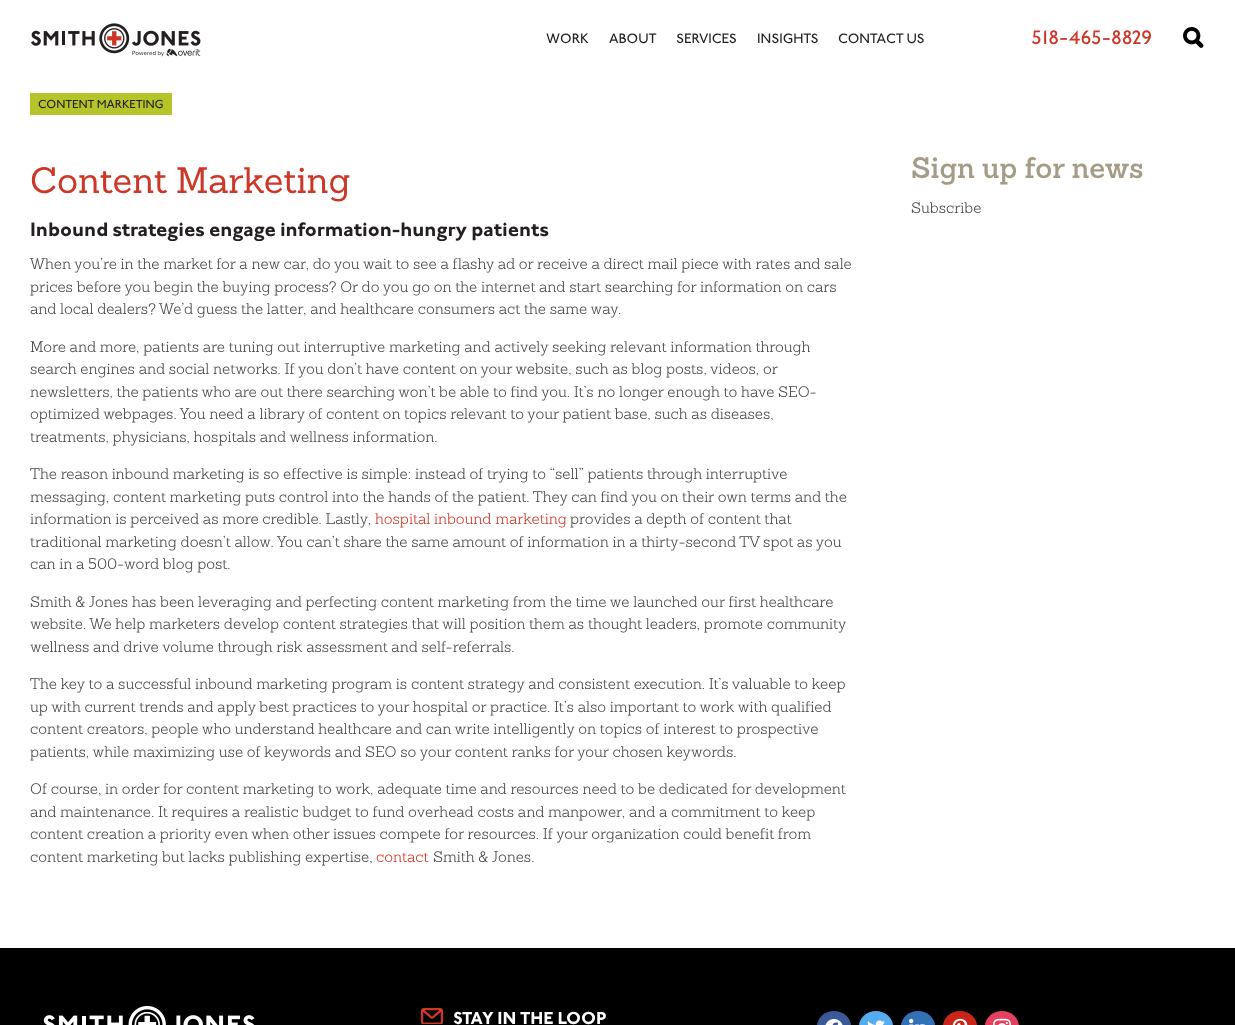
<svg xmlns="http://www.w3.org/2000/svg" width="1235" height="1025">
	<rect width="100%" height="100%" fill="#FFFFFF" />
	<image x="31" y="23" width="170" height="34" href="assets/img1.png" />
	<g font-family="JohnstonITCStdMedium" font-size="14" fill="#231F20">
		<text x="546" y="43">WORK</text>
		<text x="609" y="43">ABOUT</text>
		<text x="676" y="43">SERVICES</text>
		<text x="757" y="43">INSIGHTS</text>
		<text x="838" y="43">CONTACT US</text>
	</g>
	<text x="1031" y="44" font-family="JohnstonITCStdMedium" font-size="20" fill="#CD3727">518-465-8829</text>
	<image x="1183" y="27" width="21" height="21" href="assets/img2.png" />
	<rect x="30" y="93" width="142" height="22" fill="#B5C428" />
	<text x="38" y="108" font-family="JohnstonITCStdMedium" font-size="12" fill="#231F20">CONTENT MARKETING</text>
	<text x="30" y="193" font-family="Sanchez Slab" font-size="36" fill="#CD3727">Content Marketing</text>
	<text x="30" y="236" font-family="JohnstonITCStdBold" font-size="20" fill="#231F20">Inbound strategies engage information-hungry patients</text>
	<g font-family="Sanchez Slab" font-size="15" font-weight="300" fill="#464646">
		<text x="30" y="269">When you’re in the market for a new car, do you wait to see a flashy ad or receive a direct mail piece with rates and sale</text>
		<text x="30" y="292">prices before you begin the buying process? Or do you go on the internet and start searching for information on cars</text>
		<text x="30" y="314">and local dealers? We’d guess the latter, and healthcare consumers act the same way.</text>
		<text x="30" y="352">More and more, patients are tuning out interruptive marketing and actively seeking relevant information through</text>
		<text x="30" y="374">search engines and social networks. If you don’t have content on your website, such as blog posts, videos, or</text>
		<text x="30" y="397">newsletters, the patients who are out there searching won’t be able to find you. It’s no longer enough to have SEO-</text>
		<text x="30" y="419">optimized webpages. You need a library of content on topics relevant to your patient base, such as diseases,</text>
		<text x="30" y="442">treatments, physicians, hospitals and wellness information.</text>
		<text x="30" y="479">The reason inbound marketing is so effective is simple: instead of trying to “sell” patients through interruptive</text>
		<text x="30" y="502">messaging, content marketing puts control into the hands of the patient. They can find you on their own terms and the</text>
		<text x="30" y="524">information is perceived as more credible. Lastly,</text>
	</g>
	<text x="375" y="524" font-family="Sanchez Slab" font-size="15" font-weight="300" fill="#CD3727">hospital inbound marketing</text>
	<g font-family="Sanchez Slab" font-size="15" font-weight="300" fill="#464646">
		<text x="570" y="524">provides a depth of content that</text>
		<text x="30" y="547">traditional marketing doesn’t allow. You can’t share the same amount of information in a thirty-second TV spot as you</text>
		<text x="30" y="569">can in a 500-word blog post.</text>
		<text x="30" y="607">Smith &amp; Jones has been leveraging and perfecting content marketing from the time we launched our first healthcare</text>
		<text x="30" y="629">website. We help marketers develop content strategies that will position them as thought leaders, promote community</text>
		<text x="30" y="652">wellness and drive volume through risk assessment and self-referrals.</text>
		<text x="30" y="689">The key to a successful inbound marketing program is content strategy and consistent execution. It’s valuable to keep</text>
		<text x="30" y="712">up with current trends and apply best practices to your hospital or practice. It’s also important to work with qualified</text>
		<text x="30" y="734">content creators, people who understand healthcare and can write intelligently on topics of interest to prospective</text>
		<text x="30" y="757">patients, while maximizing use of keywords and SEO so your content ranks for your chosen keywords.</text>
		<text x="30" y="794">Of course, in order for content marketing to work, adequate time and resources need to be dedicated for development</text>
		<text x="30" y="817">and maintenance. It requires a realistic budget to fund overhead costs and manpower, and a commitment to keep</text>
		<text x="30" y="839">content creation a priority even when other issues compete for resources. If your organization could benefit from</text>
		<text x="30" y="862">content marketing but lacks publishing expertise,</text>
	</g>
	<text x="376" y="862" font-family="Sanchez Slab" font-size="15" font-weight="300" fill="#CD3727">contact</text>
	<text x="433" y="862" font-family="Sanchez Slab" font-size="15" font-weight="300" fill="#464646">Smith &amp; Jones.</text>
	<text x="911" y="178" font-family="Sanchez Slab" font-size="29" font-weight="600" fill="#A59C87">Sign up for news</text>
	<text x="911" y="213" font-family="Sanchez Slab" font-size="15" font-weight="300" fill="#464646">Subscribe</text>
	<rect x="0" y="948" width="1235" height="77" fill="#000000" />
	<image x="43" y="1005" width="212" height="20" href="assets/img3.png" />
	<image x="421" y="1008" width="22" height="16" href="assets/img4.png" />
	<text x="453" y="1024" font-family="JohnstonITCStdBold" font-size="18" fill="#FFFFFF">STAY IN THE LOOP</text>
	<rect x="817" y="1011" width="34" height="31" rx="17" fill="#3B5998" />
	<image x="825" y="1019" width="18" height="6" href="assets/img5.png" />
	<rect x="859" y="1011" width="34" height="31" rx="17" fill="#55ACEE" />
	<image x="867" y="1020" width="18" height="5" href="assets/img6.png" />
	<rect x="901" y="1011" width="34" height="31" rx="17" fill="#3371B7" />
	<image x="909" y="1018" width="17" height="7" href="assets/img7.png" />
	<rect x="943" y="1011" width="34" height="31" rx="17" fill="#C92619" />
	<image x="952" y="1018" width="16" height="7" href="assets/img8.png" />
	<rect x="985" y="1011" width="34" height="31" rx="17" fill="#E4405F" />
	<image x="993" y="1018" width="18" height="7" href="assets/img9.png" />
</svg>
